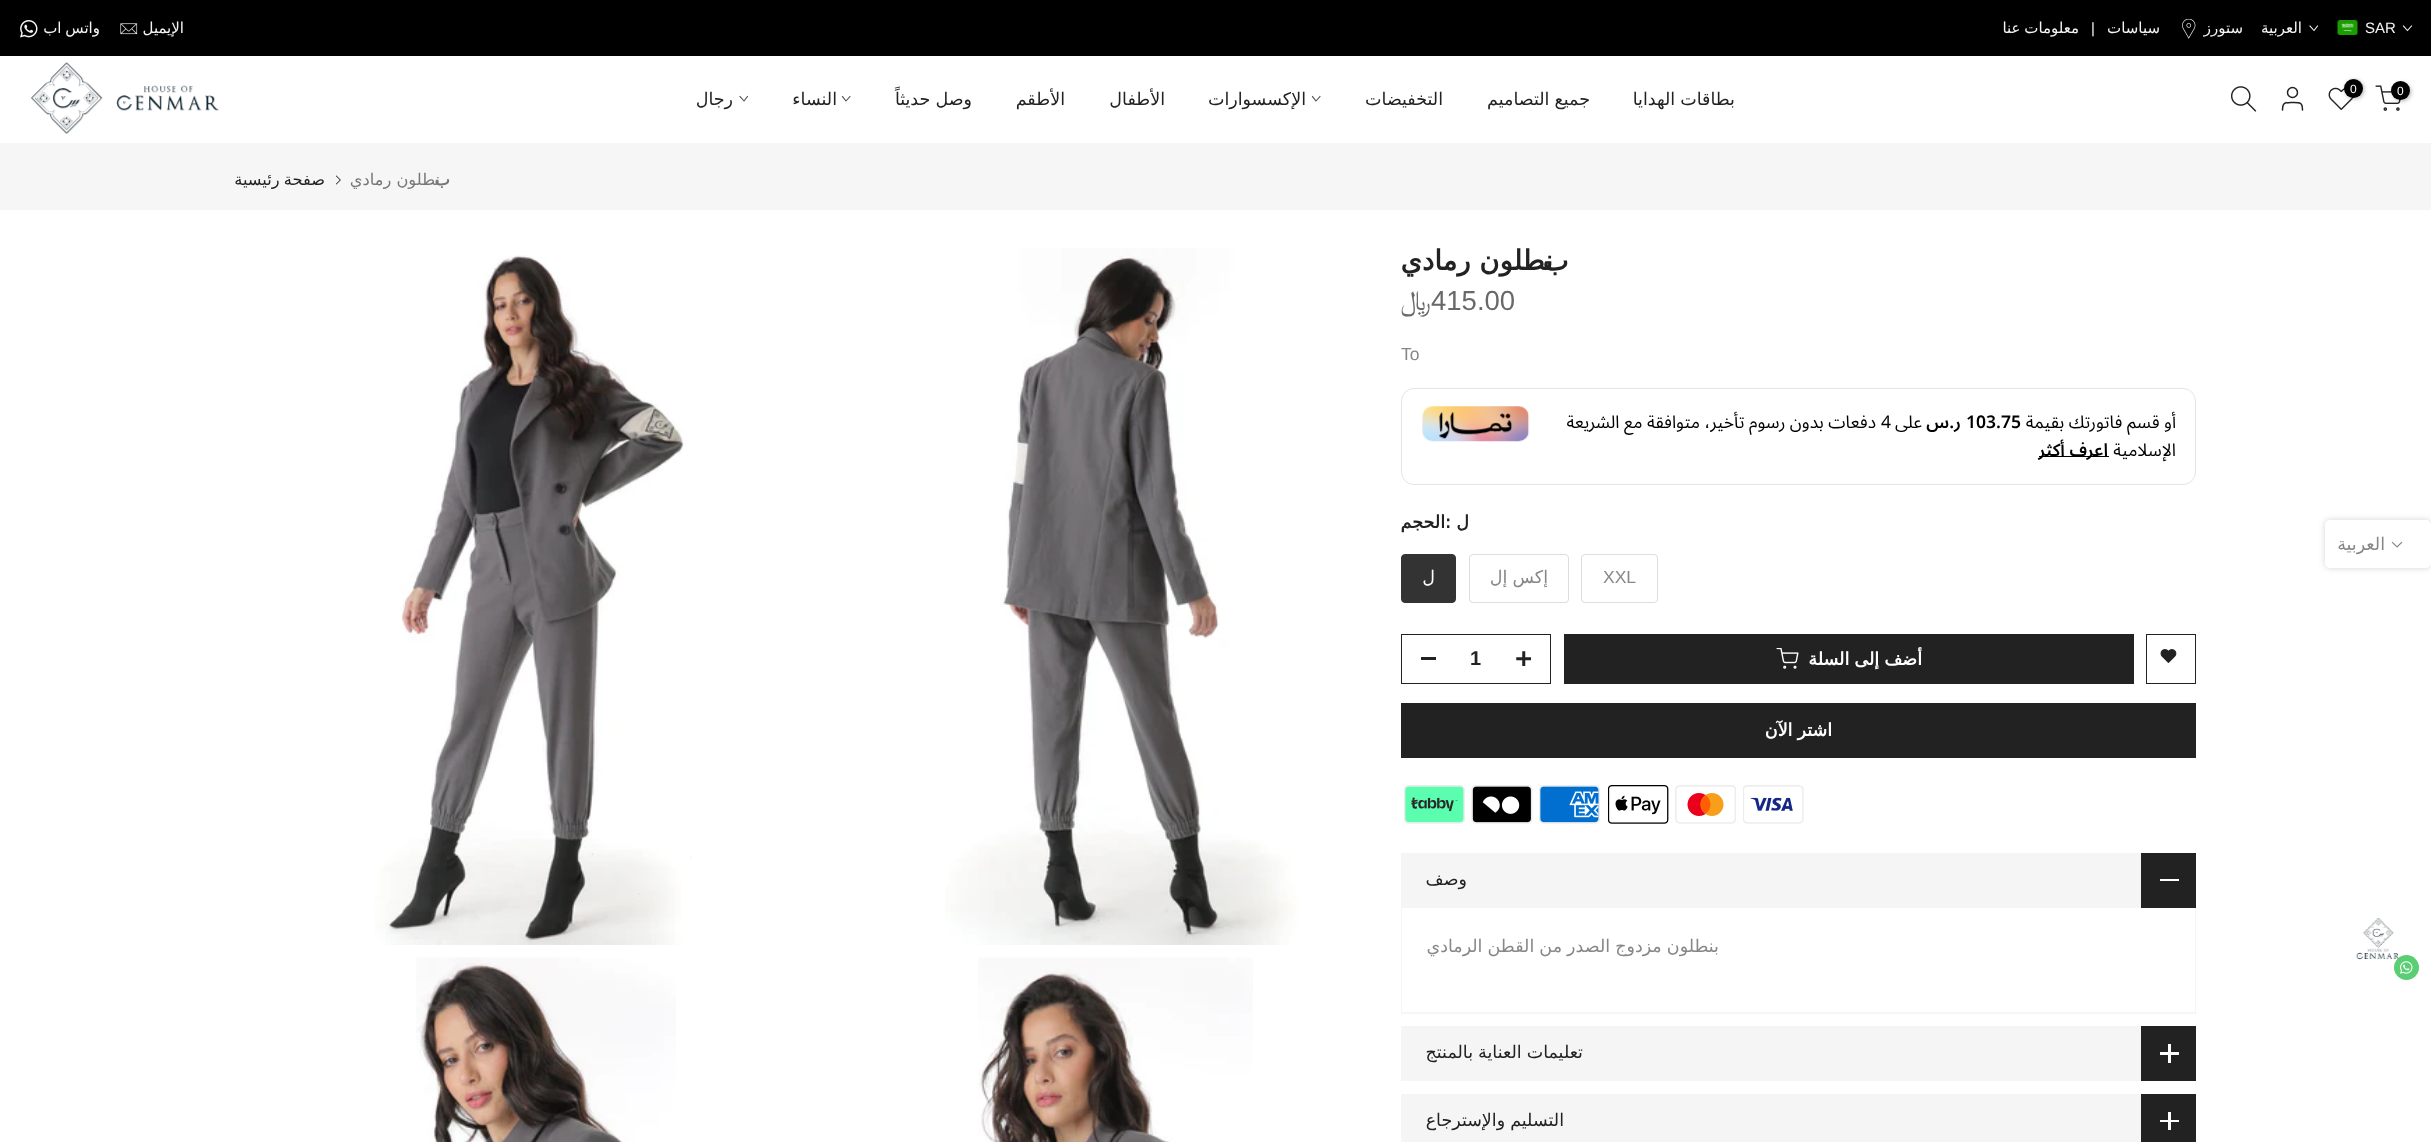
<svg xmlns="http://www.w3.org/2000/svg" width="2431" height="1142">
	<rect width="100%" height="100%" fill="#FFFFFF" />
	<rect x="0" y="0" width="2431" height="56" fill="#000000" />
	<path d="M2411.5 26L2407.5 30.5L2403.5 26" fill="none" stroke="#F5F5F5" stroke-width="1.1" stroke-linecap="square" />
	<text x="2365" y="33" font-family="Liberation Sans" font-size="15" fill="#F5F5F5">SAR</text>
	<image x="2337" y="20" width="21" height="15" href="assets/img1.png" />
	<path d="M2317.5 26L2314 30.5L2310 26" fill="none" stroke="#F5F5F5" stroke-width="1.1" stroke-linecap="square" />
	<g font-family="DejaVu Sans" font-size="15" direction="rtl" fill="#F5F5F5">
		<text x="2302" y="33">العربية</text>
		<text x="2243" y="33">ستورز</text>
	</g>
	<image x="2182" y="19" width="14" height="20" href="assets/img2.png" />
	<text x="2160" y="33" font-family="DejaVu Sans" font-size="15" direction="rtl" fill="#F5F5F5">سياسات</text>
	<text x="2091" y="33" font-family="Liberation Sans" font-size="15" fill="#F5F5F5">|</text>
	<g font-family="DejaVu Sans" font-size="15" direction="rtl" fill="#F5F5F5">
		<text x="2079" y="33" word-spacing="-1">معلومات عنا</text>
		<text x="184" y="33">الإيميل</text>
	</g>
	<image x="120" y="23" width="18" height="12" href="assets/img3.png" />
	<text x="100" y="33" word-spacing="-1" font-family="DejaVu Sans" font-size="15" direction="rtl" fill="#F5F5F5">واتس اب</text>
	<image x="20" y="20" width="18" height="18" href="assets/img4.png" />
	<image x="2375" y="85" width="26" height="26" href="assets/img5.png" />
	<rect x="2393" y="83" width="18" height="18" rx="9" fill="#000000" fill-opacity="0.3" filter="blur(2px)" />
	<circle cx="2400.5" cy="90.5" r="9.5" fill="#000000" />
	<text x="2397" y="95" font-family="Liberation Sans" font-size="12" fill="#FFFFFF">0</text>
	<image x="2328" y="87" width="26" height="23" href="assets/img6.png" />
	<rect x="2345" y="80" width="19" height="19" rx="9.5" fill="#000000" fill-opacity="0.3" filter="blur(2px)" />
	<circle cx="2353.5" cy="88.5" r="9.5" fill="#000000" />
	<text x="2350" y="93" font-family="Liberation Sans" font-size="12" fill="#FFFFFF">0</text>
	<circle cx="2292.5" cy="92.5" r="5" fill="none" stroke="#222222" stroke-width="1.5" />
	<path d="M2302.5 110C2302.5 102 2299.5 102.5 2292.5 102.5C2285.5 102.5 2282.5 102 2282.5 110" fill="none" stroke="#222222" stroke-width="1.5" stroke-linecap="round" stroke-linejoin="round" />
	<image x="2231" y="86" width="26" height="26" href="assets/img7.png" />
	<g font-family="DejaVu Sans" font-size="17.5" direction="rtl" fill="#222222">
		<text x="1735" y="105" word-spacing="-0.5">بطاقات الهدايا</text>
		<text x="1590" y="105" word-spacing="-0.5">جميع التصاميم</text>
		<text x="1443" y="105">التخفيضات</text>
	</g>
	<path d="M1320 96.5L1316 101L1312.5 96.5" fill="none" stroke="#4E4E4E" stroke-width="1.1" stroke-linecap="square" />
	<g font-family="DejaVu Sans" font-size="17.5" direction="rtl" fill="#222222">
		<text x="1306" y="105">الإكسسوارات</text>
		<text x="1165" y="105">الأطفال</text>
		<text x="1065" y="105">الأطقم</text>
		<text x="972" y="105" word-spacing="-0.5">وصل حديثاً</text>
	</g>
	<path d="M850 96.5L846 101L842.5 96.5" fill="none" stroke="#4E4E4E" stroke-width="1.1" stroke-linecap="square" />
	<text x="837" y="105" font-family="DejaVu Sans" font-size="17.5" direction="rtl" fill="#222222">النساء</text>
	<path d="M747.5 96.5L744 101L740 96.5" fill="none" stroke="#4E4E4E" stroke-width="1.1" stroke-linecap="square" />
	<text x="733" y="105" font-family="DejaVu Sans" font-size="17.5" direction="rtl" fill="#222222">رجال</text>
	<image x="31" y="62" width="188" height="73" href="assets/img8.png" />
	<rect x="0" y="143" width="2431" height="67" fill="#F6F6F6" />
	<text x="450" y="185" font-family="Noto Sans" font-size="16.25" font-weight="900" direction="rtl" fill="#777777">ب</text>
	<text x="440" y="185" font-family="DejaVu Sans" font-size="16.25" direction="rtl" fill="#777777">نطلون رمادي</text>
	<image x="335" y="175" width="6" height="10" href="assets/img9.png" />
	<text x="325" y="185" word-spacing="-1" font-family="DejaVu Sans" font-size="16.25" direction="rtl" fill="#222222">صفحة رئيسية</text>
	<text x="1569" y="270" font-family="Noto Sans" font-size="27.5" font-weight="900" direction="rtl" fill="#222222">ب</text>
	<text x="1553" y="270" font-family="DejaVu Sans" font-size="27.5" font-weight="700" direction="rtl" fill="#222222">نطلون رمادي</text>
	<text x="1431" y="310" font-family="Liberation Sans" font-size="27.5" fill="#696969">415.00</text>
	<text x="1431" y="310" font-family="FreeSerif" font-size="27.5" direction="rtl" fill="#696969">﷼</text>
	<text x="1401" y="360" font-family="Liberation Sans" font-size="17.5" fill="#878787">To</text>
	<rect x="1401.5" y="388.5" width="794" height="96" rx="12.5" fill="none" stroke="#E5E5E5" />
	<text x="2176" y="428" font-family="Noto Sans Arabic" font-size="17.5" direction="rtl" fill="#000000">أو قسم فاتورتك بقيمة</text>
	<text x="1966" y="428" font-family="Noto Sans Arabic" font-size="17.5" font-weight="600" fill="#000000">103.75</text>
	<text x="1961" y="428" font-family="Noto Sans Arabic" font-size="17.5" font-weight="600" direction="rtl" fill="#000000">ر.س</text>
	<text x="1922" y="428" font-family="Noto Sans Arabic" font-size="17.5" direction="rtl" fill="#000000">على</text>
	<text x="1881" y="428" font-family="Noto Sans Arabic" font-size="17.5" fill="#000000">4</text>
	<text x="1876" y="428" font-family="Noto Sans Arabic" font-size="17.5" direction="rtl" fill="#000000">دفعات بدون رسوم تأخير، متوافقة مع الشريعة</text>
	<image x="1422" y="406" width="108" height="36" href="assets/img10.png" />
	<text x="2176" y="456" font-family="Noto Sans Arabic" font-size="17.5" direction="rtl" fill="#000000">الإسلامية</text>
	<rect x="2039" y="456" width="70" height="1" fill="#000000" />
	<text x="2108" y="456" font-family="Noto Sans Arabic" font-size="17.5" font-weight="600" direction="rtl" fill="#000000">اعرف أكثر</text>
	<text x="1469" y="528" font-family="DejaVu Sans" font-size="17.5" font-weight="700" direction="rtl" fill="#222222">ل</text>
	<text x="1445" y="528" font-family="DejaVu Sans" font-size="17.5" font-weight="700" fill="#222222">:</text>
	<text x="1445" y="528" font-family="DejaVu Sans" font-size="17.5" font-weight="700" direction="rtl" fill="#222222">الحجم</text>
	<rect x="1581.5" y="554.5" width="76" height="48" rx="3.5" fill="none" stroke="#DDDDDD" />
	<text x="1603" y="583" font-family="Liberation Sans" font-size="17.5" fill="#878787">XXL</text>
	<rect x="1469.5" y="554.5" width="99" height="48" rx="3.5" fill="none" stroke="#DDDDDD" />
	<text x="1548" y="583" word-spacing="-0.5" font-family="DejaVu Sans" font-size="17.5" direction="rtl" fill="#878787">إكس إل</text>
	<rect x="1401.5" y="554.5" width="54" height="48" rx="3.5" fill="#333333" stroke="#333333" />
	<text x="1435" y="583" font-family="DejaVu Sans" font-size="17.5" direction="rtl" fill="#FFFFFF">ل</text>
	<rect x="2146.5" y="634.5" width="49" height="49" fill="none" stroke="#222222" />
	<image x="2160" y="649" width="17" height="14" href="assets/img11.png" />
	<rect x="1564" y="634" width="570" height="50" fill="#222222" />
	<text x="1922" y="665" word-spacing="-0.5" font-family="DejaVu Sans" font-size="17.5" font-weight="700" direction="rtl" fill="#FFFFFF">أضف إلى السلة</text>
	<image x="1776" y="648" width="23" height="21" href="assets/img12.png" />
	<rect x="1401.5" y="634.5" width="149" height="49" fill="none" stroke="#222222" />
	<image x="1516" y="651" width="15" height="15" href="assets/img13.png" />
	<text x="1470" y="665" font-family="Liberation Sans" font-size="20" font-weight="700" fill="#222222">1</text>
	<rect x="1421" y="657" width="15" height="3" fill="#222222" />
	<rect x="1401" y="703" width="795" height="55" fill="#222222" />
	<text x="1832" y="736" word-spacing="-0.5" font-family="DejaVu Sans" font-size="17.5" font-weight="700" direction="rtl" fill="#FFFFFF">اشتر الآن</text>
	<image x="1743" y="785" width="61" height="39" href="assets/img14.png" />
	<image x="1675" y="785" width="61" height="39" href="assets/img15.png" />
	<image x="1608" y="785" width="61" height="39" href="assets/img16.png" />
	<image x="1539" y="785" width="61" height="39" href="assets/img17.png" />
	<image x="1471" y="785" width="62" height="39" href="assets/img18.png" />
	<image x="1404" y="785" width="61" height="39" href="assets/img19.png" />
	<rect x="1401" y="853" width="740" height="55" fill="#F5F5F5" />
	<rect x="2141" y="853" width="55" height="55" fill="#222222" />
	<rect x="2160" y="879" width="19" height="2" fill="#FFFFFF" />
	<text x="1467" y="885" font-family="DejaVu Sans" font-size="17.5" direction="rtl" fill="#222222">وصف</text>
	<path d="M2196 908V1014L2195 1012V908Z" fill="#F5F5F5" />
	<path d="M2196 1014H1401L1402 1012H2195Z" fill="#878787" fill-opacity="0.08" />
	<path d="M1401 1014V908H1402V1012Z" fill="#F5F5F5" />
	<text x="1719" y="952" word-spacing="-0.5" font-family="DejaVu Sans" font-size="17.5" direction="rtl" fill="#878787">بنطلون مزدوج الصدر من القطن الرمادي</text>
	<rect x="1401" y="1026" width="740" height="55" fill="#F5F5F5" />
	<rect x="2141" y="1026" width="55" height="55" fill="#222222" />
	<rect x="2168" y="1044" width="3" height="19" fill="#FFFFFF" />
	<rect x="2160" y="1052" width="19" height="3" fill="#FFFFFF" />
	<text x="1583" y="1058" word-spacing="-0.5" font-family="DejaVu Sans" font-size="17.5" direction="rtl" fill="#222222">تعليمات العناية بالمنتج</text>
	<rect x="1401" y="1094" width="740" height="48" fill="#F5F5F5" />
	<rect x="2141" y="1094" width="55" height="48" fill="#222222" />
	<rect x="2168" y="1112" width="3" height="18" fill="#FFFFFF" />
	<rect x="2160" y="1120" width="19" height="2" fill="#FFFFFF" />
	<text x="1564" y="1126" word-spacing="-0.5" font-family="DejaVu Sans" font-size="17.5" direction="rtl" fill="#222222">التسليم والإسترجاع</text>
	<image x="945" y="248" width="355" height="697" href="assets/img20.png" />
	<image x="375" y="255" width="317" height="690" href="assets/img21.png" />
	<image x="978" y="957" width="275" height="185" href="assets/img22.png" />
	<image x="416" y="957" width="260" height="185" href="assets/img23.png" />
	<rect x="2325" y="520" width="106" height="48" rx="5" fill="#000000" fill-opacity="0.17" filter="blur(3px)" />
	<rect x="2325" y="520" width="106" height="48" rx="5" fill="#FFFFFF" />
	<path d="M2401.5 542.5L2397 547L2392.5 542.5" fill="none" stroke="#878787" stroke-width="1.2" stroke-linecap="square" />
	<text x="2385" y="550" font-family="DejaVu Sans" font-size="17.5" direction="rtl" fill="#878787">العربية</text>
	<image x="2356" y="918" width="44" height="42" href="assets/img24.png" />
	<circle cx="2406.5" cy="967.5" r="12.5" fill="#59CE72" />
	<image x="2400" y="961" width="13" height="13" href="assets/img25.png" />
</svg>
